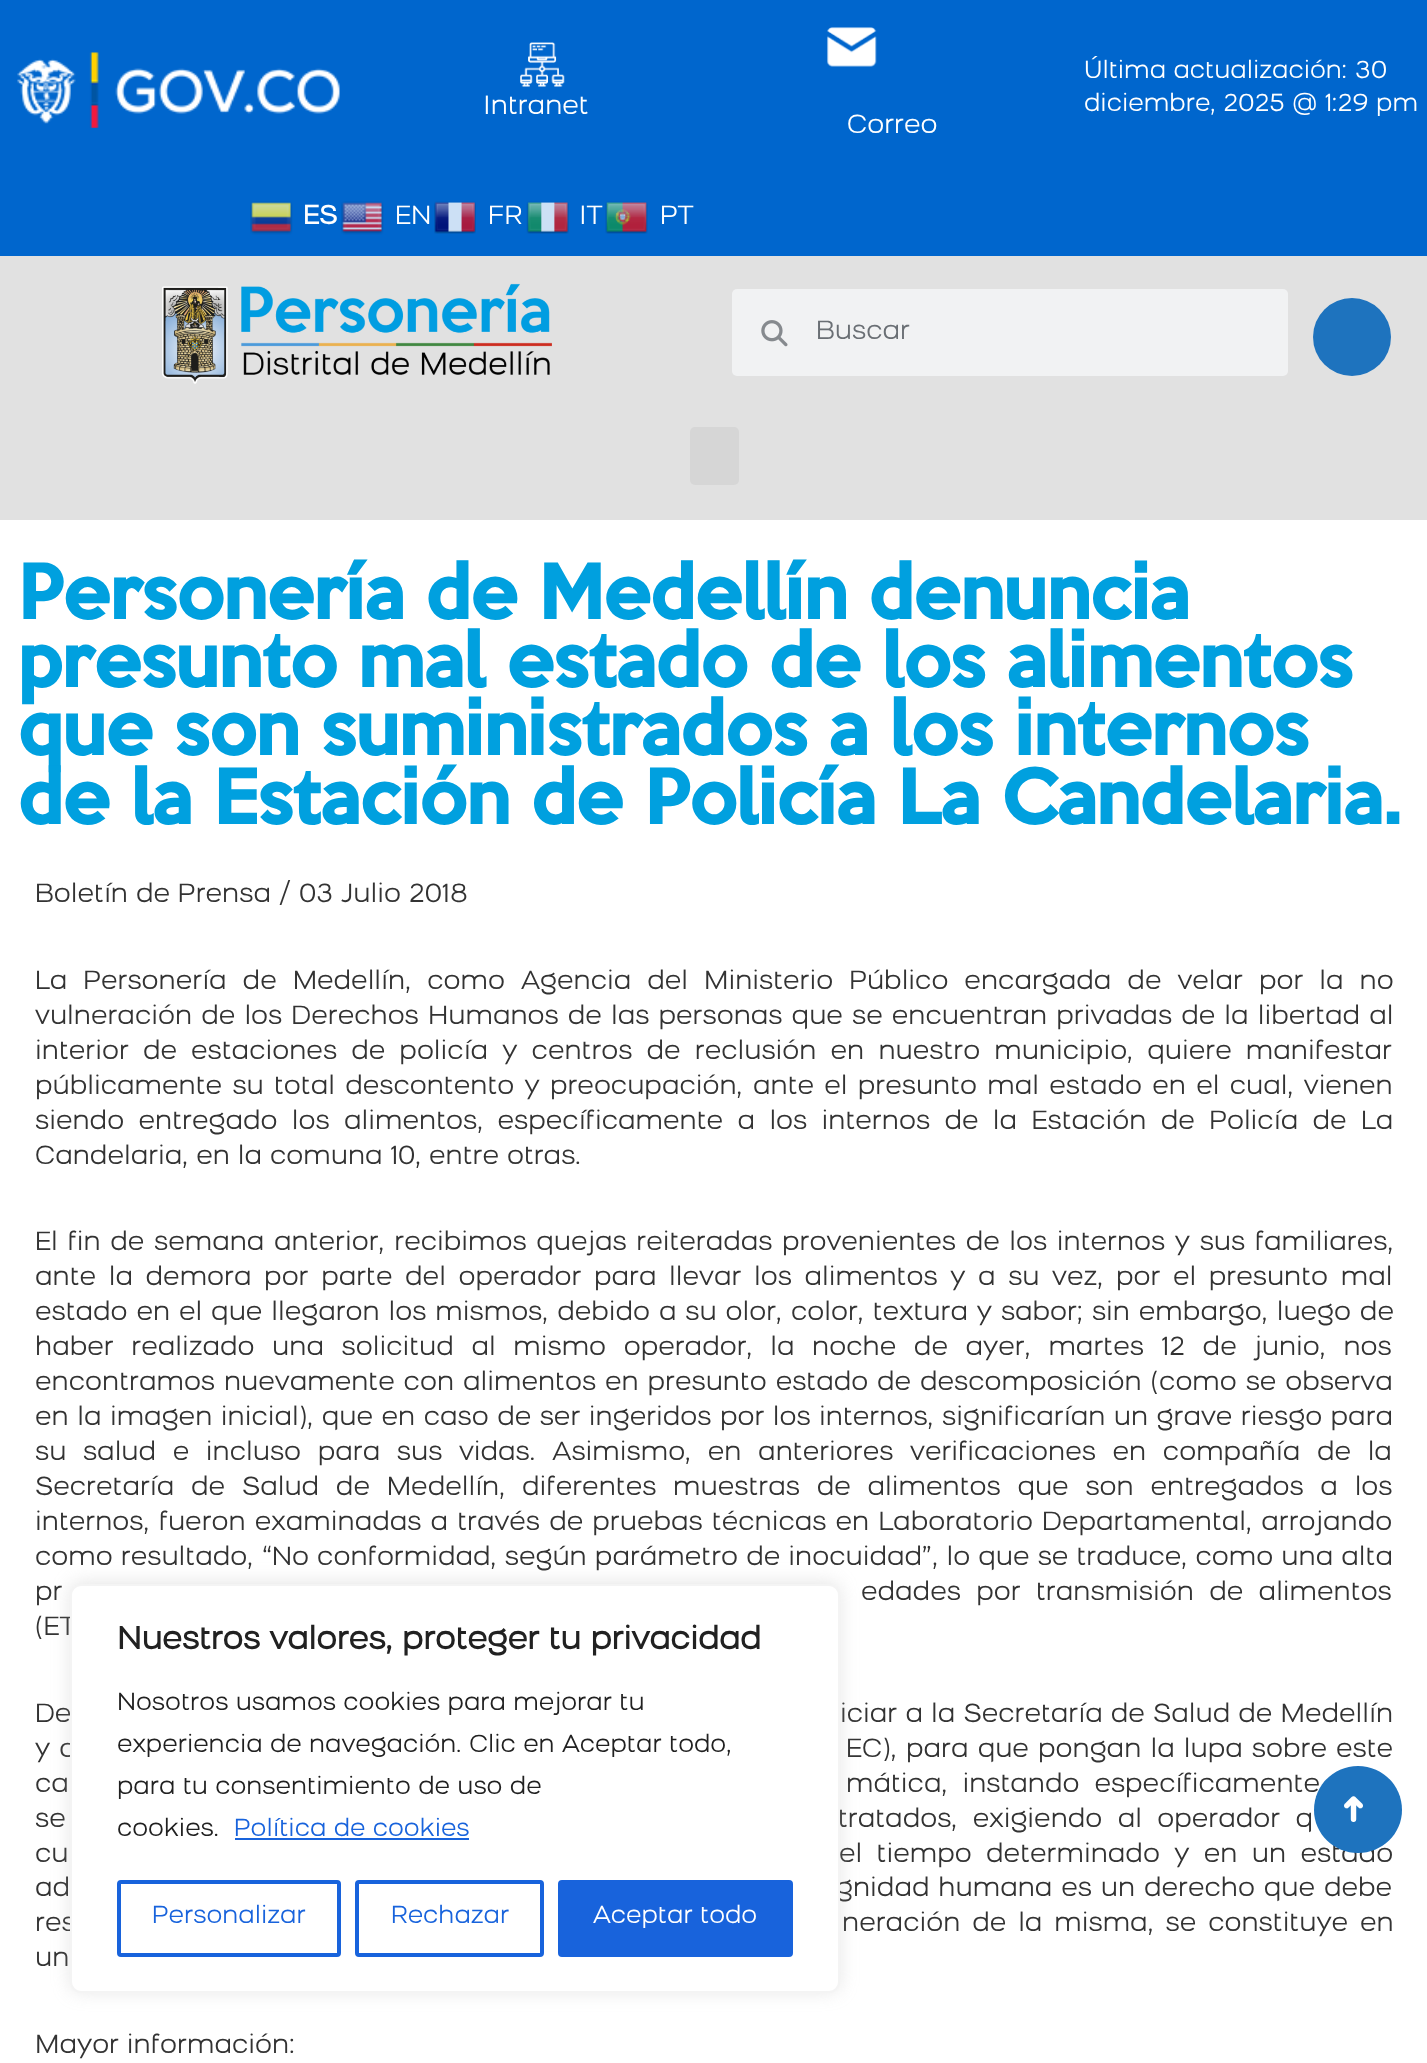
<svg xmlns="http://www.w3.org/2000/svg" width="1427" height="2063">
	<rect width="100%" height="100%" fill="#FFFFFF" />
	<rect x="0" y="0" width="1427" height="256" fill="#0066CD" />
	<image x="17" y="52" width="323" height="76" href="assets/img1.png" />
	<image x="520" y="42" width="45" height="45" href="assets/img2.png" />
	<text x="483" y="114" font-family="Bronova" font-size="26.25" fill="#FFFFFF">Intranet</text>
	<g font-family="Bronova" font-size="24.5" fill="#FFFFFF">
		<text x="1084" y="78">Última actualización: 30</text>
		<text x="1084" y="111">diciembre, 2025 @ 1:29 pm</text>
	</g>
	<image x="827" y="27" width="50" height="40" href="assets/img3.png" />
	<text x="847" y="133" font-family="Bronova" font-size="26.25" fill="#FFFFFF">Correo</text>
	<image x="250" y="201" width="43" height="34" href="assets/img4.png" />
	<text x="303" y="224" font-family="Bronova" font-size="26.25" font-weight="700" fill="#FFFFFF">ES</text>
	<image x="341" y="201" width="43" height="34" href="assets/img5.png" />
	<text x="395" y="224" font-family="Bronova" font-size="26.25" fill="#FFFFFF">EN</text>
	<image x="434" y="201" width="42" height="33" href="assets/img6.png" />
	<text x="488" y="224" font-family="Bronova" font-size="26.25" fill="#FFFFFF">FR</text>
	<image x="526" y="201" width="43" height="33" href="assets/img7.png" />
	<text x="579" y="224" font-family="Bronova" font-size="26.25" fill="#FFFFFF">IT</text>
	<image x="605" y="201" width="43" height="33" href="assets/img8.png" />
	<text x="660" y="224" font-family="Bronova" font-size="26.25" fill="#FFFFFF">PT</text>
	<rect x="0" y="256" width="1427" height="264" fill="#E1E1E1" />
	<circle cx="1352" cy="337" r="39" fill="#1E73BE" />
	<image x="162" y="283" width="390" height="101" href="assets/img9.png" />
	<rect x="732" y="289" width="556" height="87" rx="5" fill="#F1F2F3" />
	<image x="761" y="320" width="27" height="27" href="assets/img10.png" />
	<text x="816" y="339" font-family="Bronova" font-size="26.25" fill="#6A6F74">Buscar</text>
	<rect x="690" y="427" width="49" height="58" rx="5" fill="#D6D6D6" />
	<g font-family="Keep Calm" font-size="68.25" font-weight="700" fill="#00A0DF">
		<text x="18" y="619">Personería de Medellín denuncia</text>
		<text x="18" y="687">presunto mal estado de los alimentos</text>
		<text x="18" y="755">que son suministrados a los internos</text>
		<text x="18" y="824">de la Estación de Policía La Candelaria.</text>
	</g>
	<g font-family="Bronova" font-size="26.25" fill="#333333">
		<text x="35" y="902">Boletín de Prensa / 03 Julio 2018</text>
		<text x="35" y="989" word-spacing="8.1">La Personería de Medellín, como Agencia del Ministerio Público encargada de velar por la no</text>
		<text x="35" y="1024" word-spacing="1.25">vulneración de los Derechos Humanos de las personas que se encuentran privadas de la libertad al</text>
		<text x="35" y="1059" word-spacing="6.25">interior de estaciones de policía y centros de reclusión en nuestro municipio, quiere manifestar</text>
		<text x="35" y="1094" word-spacing="2.4">públicamente su total descontento y preocupación, ante el presunto mal estado en el cual, vienen</text>
		<text x="35" y="1129" word-spacing="6.5">siendo entregado los alimentos, específicamente a los internos de la Estación de Policía de La</text>
		<text x="35" y="1164">Candelaria, en la comuna 10, entre otras.</text>
		<text x="35" y="1250" word-spacing="1.75">El fin de semana anterior, recibimos quejas reiteradas provenientes de los internos y sus familiares,</text>
		<text x="35" y="1285" word-spacing="4.75">ante la demora por parte del operador para llevar los alimentos y a su vez, por el presunto mal</text>
		<text x="35" y="1320" word-spacing="1">estado en el que llegaron los mismos, debido a su olor, color, textura y sabor; sin embargo, luego de</text>
		<text x="35" y="1355" word-spacing="9.75">haber realizado una solicitud al mismo operador, la noche de ayer, martes 12 de junio, nos</text>
		<text x="35" y="1390" word-spacing="1">encontramos nuevamente con alimentos en presunto estado de descomposición (como se observa</text>
		<text x="35" y="1425" word-spacing="0.6">en la imagen inicial), que en caso de ser ingeridos por los internos, significarían un grave riesgo para</text>
		<text x="35" y="1460" word-spacing="8.75">su salud e incluso para sus vidas. Asimismo, en anteriores verificaciones en compañía de la</text>
		<text x="35" y="1495" word-spacing="8.9">Secretaría de Salud de Medellín, diferentes muestras de alimentos que son entregados a los</text>
		<text x="35" y="1530" word-spacing="1.25">internos, fueron examinadas a través de pruebas técnicas en Laboratorio Departamental, arrojando</text>
		<text x="35" y="1565" word-spacing="0.25">como resultado, “No conformidad, según parámetro de inocuidad”, lo que se traduce, como una alta</text>
		<text x="35" y="1600" word-spacing="7.5">pr</text>
		<text x="861" y="1600" word-spacing="7.5">edades por transmisión de alimentos</text>
		<text x="35" y="1635">(ET</text>
		<text x="35" y="1722" word-spacing="0.25">De</text>
		<text x="840" y="1722" word-spacing="0.25">iciar a la Secretaría de Salud de Medellín</text>
		<text x="35" y="1757" word-spacing="1.25">y a</text>
		<text x="846" y="1757" word-spacing="1.25">EC), para que pongan la lupa sobre este</text>
		<text x="35" y="1792" word-spacing="7">ca</text>
		<text x="846" y="1792" word-spacing="7">mática, instando específicamente</text>
		<text x="35" y="1827" word-spacing="7.5">se</text>
		<text x="838" y="1827" word-spacing="7.5">tratados, exigiendo al operador q</text>
		<text x="35" y="1862" word-spacing="6.5">cu</text>
		<text x="839" y="1862" word-spacing="6.5">el tiempo determinado y en un estado</text>
		<text x="35" y="1896" word-spacing="1">ad</text>
		<text x="836" y="1896" word-spacing="1">gnidad humana es un derecho que debe</text>
		<text x="35" y="1931" word-spacing="4">res</text>
		<text x="842" y="1931" word-spacing="4">neración de la misma, se constituye en</text>
		<text x="35" y="1966">un</text>
		<text x="35" y="2053">Mayor información:</text>
	</g>
	<rect x="70" y="1582" width="770" height="410" rx="11" fill="#ACABAB" fill-opacity="0.3" filter="blur(9px)" />
	<rect x="71" y="1585" width="768" height="407" rx="10" fill="#FFFFFF" stroke="#F4F4F4" stroke-width="2" />
	<text x="117" y="1649" font-family="Bronova" font-size="31.5" font-weight="700" fill="#212121">Nuestros valores, proteger tu privacidad</text>
	<g font-family="Bronova" font-size="24.5" fill="#212121">
		<text x="117" y="1710">Nosotros usamos cookies para mejorar tu</text>
		<text x="117" y="1752">experiencia de navegación. Clic en Aceptar todo,</text>
		<text x="117" y="1794">para tu consentimiento de uso de</text>
		<text x="117" y="1836">cookies.</text>
	</g>
	<text x="234" y="1836" font-family="Bronova" font-size="24.5" fill="#1863DC">Política de cookies</text>
	<rect x="235" y="1838" width="234" height="2" fill="#1863DC" />
	<rect x="119" y="1882" width="220" height="73" rx="2" fill="none" stroke="#1863DC" stroke-width="4" />
	<text x="152" y="1923" font-family="Bronova" font-size="24.5" fill="#1863DC">Personalizar</text>
	<rect x="357" y="1882" width="185" height="73" rx="2" fill="none" stroke="#1863DC" stroke-width="4" />
	<text x="391" y="1923" font-family="Bronova" font-size="24.5" fill="#1863DC">Rechazar</text>
	<rect x="560" y="1882" width="231" height="73" rx="2" fill="#1863DC" stroke="#1863DC" stroke-width="4" />
	<text x="593" y="1923" font-family="Bronova" font-size="24.5" fill="#FFFFFF">Aceptar todo</text>
	<path d="M1314 1810C1314 1785 1334 1766 1358 1766C1382 1766 1402 1785 1402 1810C1402 1834 1382 1853 1358 1853C1334 1853 1314 1834 1314 1810Z" fill="#1E73BE" />
	<text x="1365" y="1824" transform="rotate(-90 1365 1824)" font-family="DejaVu Sans" font-size="35" font-weight="700" fill="#FFFFFF">➜</text>
</svg>
